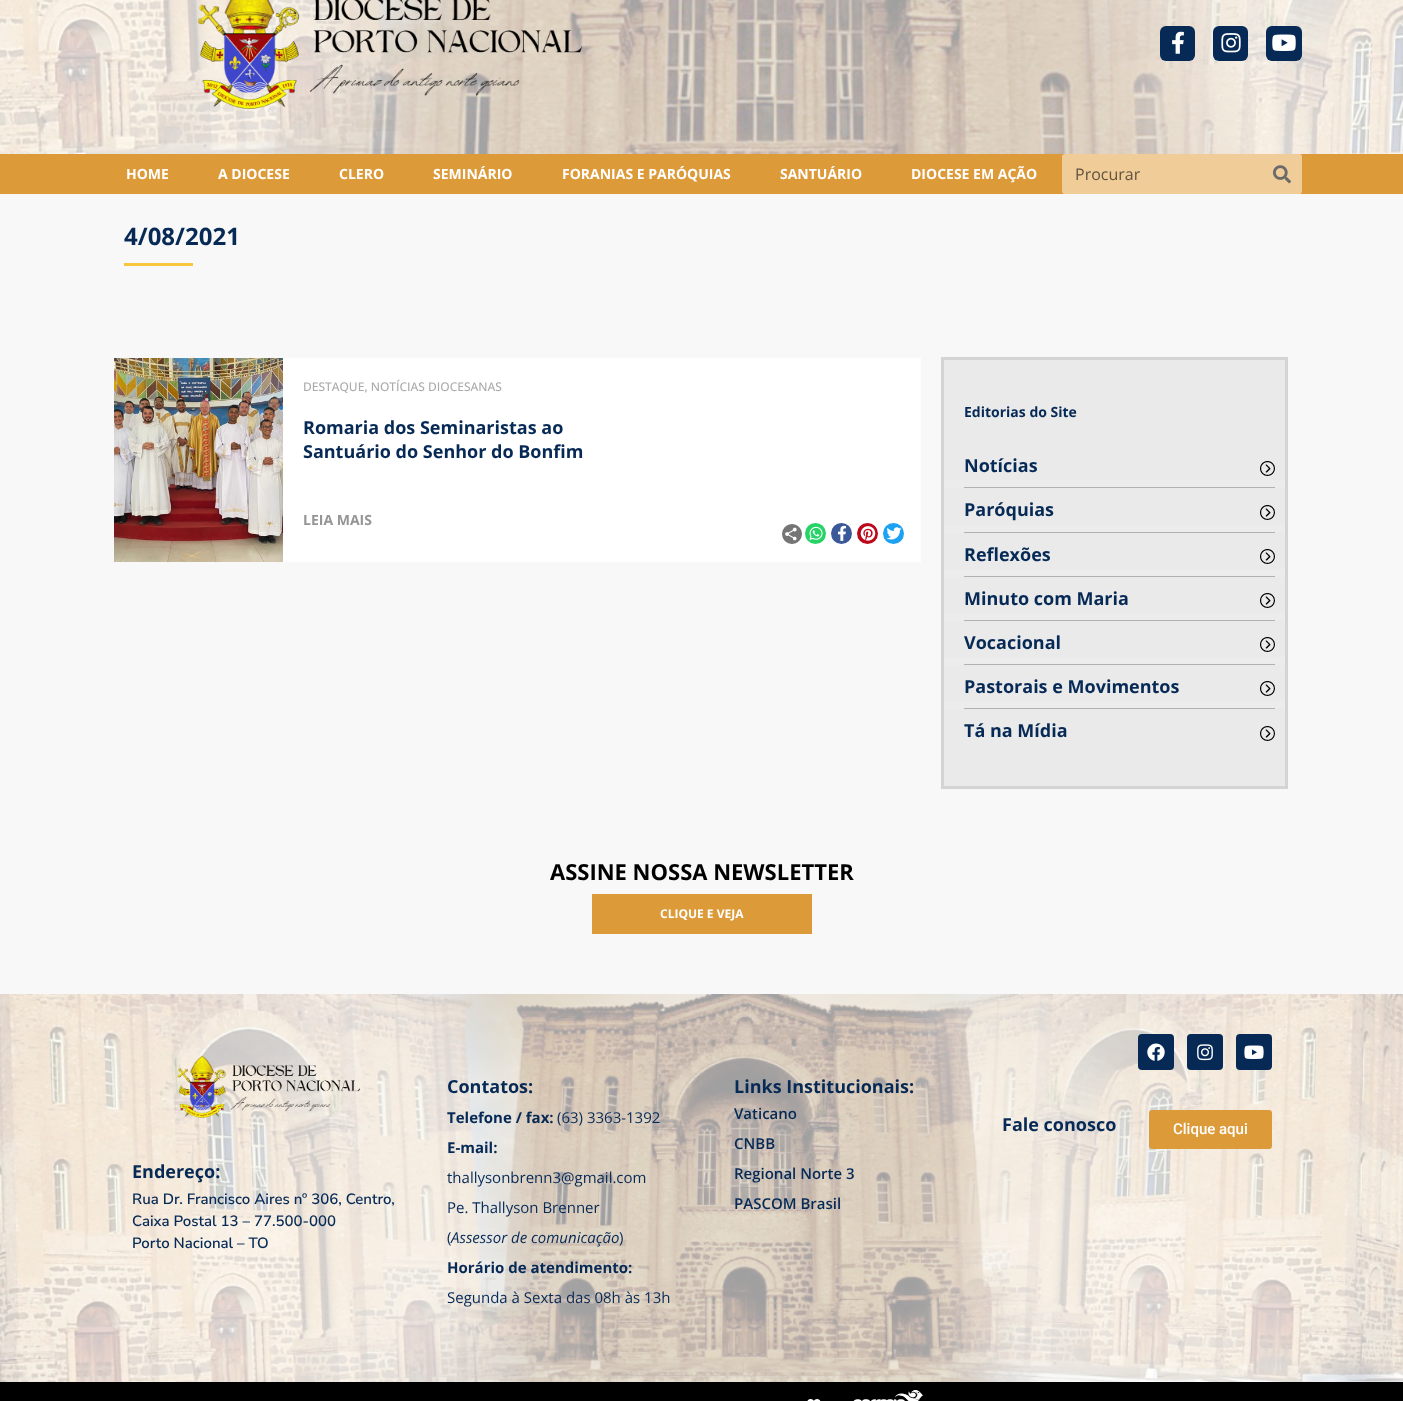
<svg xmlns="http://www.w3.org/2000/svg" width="1403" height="1401">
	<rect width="100%" height="100%" fill="#FFFFFF" />
	<image x="0" y="0" width="1403" height="154" href="assets/img1.png" />
	<image x="198" y="0" width="385" height="110" href="assets/img2.png" />
	<rect x="1160" y="26" width="35" height="35" rx="6" fill="#062955" />
	<image x="1172" y="31" width="12" height="23" href="assets/img3.png" />
	<rect x="1213" y="26" width="35" height="35" rx="6" fill="#062955" />
	<image x="1221" y="33" width="20" height="20" href="assets/img4.png" />
	<rect x="1266" y="26" width="36" height="35" rx="6" fill="#062955" />
	<image x="1272" y="34" width="24" height="17" href="assets/img5.png" />
	<rect x="0" y="154" width="1403" height="40" fill="#DD9A38" />
	<g font-family="Open Sans" font-size="14" font-weight="700" fill="#FFFFFF">
		<text x="126" y="179">HOME</text>
		<text x="218" y="179">A DIOCESE</text>
		<text x="339" y="179">CLERO</text>
		<text x="433" y="179">SEMINÁRIO</text>
		<text x="562" y="179">FORANIAS E PARÓQUIAS</text>
		<text x="780" y="179">SANTUÁRIO</text>
		<text x="911" y="179">DIOCESE EM AÇÃO</text>
	</g>
	<rect x="1062" y="154" width="240" height="40" rx="3" fill="#EFCC98" />
	<text x="1075" y="180" font-family="Open Sans" font-size="16" fill="#60523D">Procurar</text>
	<path d="M1262 154H1299C1300.5 154 1302 155.5 1302 157V191C1302 192.5 1300.5 194 1299 194H1262Z" fill="#EFCC98" />
	<image x="1273" y="165" width="18" height="19" href="assets/img6.png" />
	<rect x="0" y="194" width="1403" height="800" fill="#F8F8F8" />
	<text x="124" y="245" font-family="Open Sans" font-size="24" font-weight="700" fill="#062955">4/08/2021</text>
	<rect x="124" y="263" width="69" height="3" fill="#F8C63D" />
	<rect x="283" y="358" width="638" height="204" fill="#FFFFFF" />
	<image x="114" y="358" width="169" height="204" href="assets/img7.png" />
	<text x="303" y="391" font-family="Open Sans" font-size="12" font-weight="500" fill="#ABABAB">DESTAQUE, NOTÍCIAS DIOCESANAS</text>
	<g font-family="Open Sans" font-size="18" font-weight="700" fill="#062955">
		<text x="303" y="434">Romaria dos Seminaristas ao</text>
		<text x="303" y="458">Santuário do Senhor do Bonfim</text>
	</g>
	<text x="303" y="525" font-family="Open Sans" font-size="14" font-weight="700" fill="#959595">LEIA MAIS</text>
	<image x="782" y="524" width="20" height="20" href="assets/img8.png" />
	<circle cx="815.5" cy="533.5" r="10.5" fill="#25D366" />
	<image x="809" y="526" width="14" height="14" href="assets/img9.png" />
	<circle cx="841.5" cy="533.5" r="10.5" fill="#3B5998" />
	<image x="838" y="525" width="8" height="16" href="assets/img10.png" />
	<circle cx="867.5" cy="533.5" r="10.5" fill="#BD081C" />
	<image x="860" y="526" width="16" height="15" href="assets/img11.png" />
	<circle cx="893.5" cy="533.5" r="10.5" fill="#1DA1F2" />
	<image x="886" y="527" width="16" height="13" href="assets/img12.png" />
	<rect x="944" y="360" width="341" height="120" fill="#EAEAEA" />
	<rect x="941" y="357" width="347" height="3" fill="#D4D4D4" />
	<rect x="1285" y="357" width="3" height="123" fill="#D4D4D4" />
	<rect x="941" y="357" width="3" height="123" fill="#D4D4D4" />
	<text x="964" y="417" font-family="Open Sans" font-size="14" font-weight="700" fill="#062955">Editorias do Site</text>
	<text x="964" y="472" font-family="Open Sans" font-size="18" font-weight="700" fill="#062955">Notícias</text>
	<image x="1260" y="461" width="15" height="15" href="assets/img13.png" />
	<rect x="944" y="480" width="341" height="8" fill="#ECECEC" />
	<rect x="964" y="487" width="311" height="1" fill="#B1B1B1" />
	<rect x="944" y="488" width="341" height="37" fill="#EAEAEA" />
	<rect x="1285" y="480" width="3" height="45" fill="#D4D4D4" />
	<rect x="941" y="480" width="3" height="45" fill="#D4D4D4" />
	<text x="964" y="516" font-family="Open Sans" font-size="18" font-weight="700" fill="#062955">Paróquias</text>
	<image x="1260" y="505" width="15" height="15" href="assets/img13.png" />
	<rect x="944" y="525" width="341" height="8" fill="#ECECEC" />
	<rect x="964" y="532" width="311" height="1" fill="#B1B1B1" />
	<rect x="944" y="533" width="341" height="36" fill="#EAEAEA" />
	<rect x="1285" y="525" width="3" height="44" fill="#D4D4D4" />
	<rect x="941" y="525" width="3" height="44" fill="#D4D4D4" />
	<text x="964" y="561" font-family="Open Sans" font-size="18" font-weight="700" fill="#062955">Reflexões</text>
	<image x="1260" y="549" width="15" height="15" href="assets/img13.png" />
	<rect x="944" y="569" width="341" height="8" fill="#ECECEC" />
	<rect x="964" y="576" width="311" height="1" fill="#B1B1B1" />
	<rect x="944" y="577" width="341" height="36" fill="#EAEAEA" />
	<rect x="1285" y="569" width="3" height="44" fill="#D4D4D4" />
	<rect x="941" y="569" width="3" height="44" fill="#D4D4D4" />
	<text x="964" y="605" font-family="Open Sans" font-size="18" font-weight="700" fill="#062955">Minuto com Maria</text>
	<image x="1260" y="593" width="15" height="15" href="assets/img13.png" />
	<rect x="944" y="613" width="341" height="8" fill="#ECECEC" />
	<rect x="964" y="620" width="311" height="1" fill="#B1B1B1" />
	<rect x="944" y="621" width="341" height="36" fill="#EAEAEA" />
	<rect x="1285" y="613" width="3" height="44" fill="#D4D4D4" />
	<rect x="941" y="613" width="3" height="44" fill="#D4D4D4" />
	<text x="964" y="649" font-family="Open Sans" font-size="18" font-weight="700" fill="#062955">Vocacional</text>
	<image x="1260" y="637" width="15" height="15" href="assets/img13.png" />
	<rect x="944" y="657" width="341" height="8" fill="#ECECEC" />
	<rect x="964" y="664" width="311" height="1" fill="#B1B1B1" />
	<rect x="944" y="665" width="341" height="36" fill="#EAEAEA" />
	<rect x="1285" y="657" width="3" height="44" fill="#D4D4D4" />
	<rect x="941" y="657" width="3" height="44" fill="#D4D4D4" />
	<text x="964" y="693" font-family="Open Sans" font-size="18" font-weight="700" fill="#062955">Pastorais e Movimentos</text>
	<image x="1260" y="681" width="15" height="15" href="assets/img13.png" />
	<rect x="944" y="701" width="341" height="8" fill="#ECECEC" />
	<rect x="964" y="708" width="311" height="1" fill="#B1B1B1" />
	<rect x="944" y="709" width="341" height="77" fill="#EAEAEA" />
	<rect x="1285" y="701" width="3" height="88" fill="#D4D4D4" />
	<rect x="941" y="786" width="347" height="3" fill="#D4D4D4" />
	<rect x="941" y="701" width="3" height="88" fill="#D4D4D4" />
	<text x="964" y="737" font-family="Open Sans" font-size="18" font-weight="700" fill="#062955">Tá na Mídia</text>
	<image x="1260" y="726" width="15" height="15" href="assets/img13.png" />
	<text x="550" y="880" font-family="Open Sans" font-size="22" font-weight="700" fill="#000000">ASSINE NOSSA NEWSLETTER</text>
	<rect x="592" y="894" width="220" height="40" fill="#DD9A38" />
	<text x="660" y="918" font-family="Open Sans" font-size="12" font-weight="700" fill="#FFFFFF">CLIQUE E VEJA</text>
	<image x="0" y="994" width="1403" height="388" href="assets/img14.png" />
	<text x="447" y="1093" font-family="Open Sans" font-size="18" font-weight="700" fill="#062955">Contatos:</text>
	<text x="447" y="1123" font-family="Open Sans" font-size="15" font-weight="700" fill="#062955">Telefone / fax:</text>
	<text x="557" y="1123" font-family="Open Sans" font-size="15" fill="#062955">(63) 3363-1392</text>
	<text x="447" y="1153" font-family="Open Sans" font-size="15" font-weight="700" fill="#062955">E-mail:</text>
	<g font-family="Open Sans" font-size="15" fill="#062955">
		<text x="447" y="1183">thallysonbrenn3@gmail.com</text>
		<text x="447" y="1213">Pe. Thallyson Brenner</text>
		<text x="447" y="1243">(</text>
	</g>
	<text x="451" y="1243" font-family="Open Sans" font-size="15" font-style="italic" fill="#062955">Assessor de comunicação</text>
	<text x="619" y="1243" font-family="Open Sans" font-size="15" fill="#062955">)</text>
	<text x="447" y="1273" font-family="Open Sans" font-size="15" font-weight="700" fill="#062955">Horário de atendimento:</text>
	<text x="447" y="1303" font-family="Open Sans" font-size="15" fill="#062955">Segunda à Sexta das 08h às 13h</text>
	<text x="734" y="1093" font-family="Open Sans" font-size="18" font-weight="700" fill="#062955">Links Institucionais:</text>
	<g font-family="Open Sans" font-size="15" font-weight="600" fill="#062955">
		<text x="734" y="1119">Vaticano</text>
		<text x="734" y="1149">CNBB</text>
		<text x="734" y="1179">Regional Norte 3</text>
		<text x="734" y="1209">PASCOM Brasil</text>
	</g>
	<rect x="1138" y="1034" width="36" height="36" rx="4" fill="#062955" />
	<image x="1147" y="1043" width="18" height="18" href="assets/img15.png" />
	<rect x="1187" y="1034" width="36" height="36" rx="4" fill="#062955" />
	<image x="1197" y="1044" width="16" height="17" href="assets/img16.png" />
	<rect x="1236" y="1034" width="36" height="36" rx="4" fill="#062955" />
	<image x="1244" y="1045" width="20" height="14" href="assets/img17.png" />
	<text x="1002" y="1131" font-family="Open Sans" font-size="18" font-weight="700" fill="#062955">Fale conosco</text>
	<rect x="1149" y="1110" width="123" height="39" rx="3" fill="#DD9A38" />
	<text x="1173" y="1134" font-family="Roboto" font-size="15" font-weight="500" fill="#FFFFFF">Clique aqui</text>
	<image x="177" y="1055" width="183" height="63" href="assets/img18.png" />
	<text x="132" y="1178" font-family="Open Sans" font-size="18" font-weight="700" fill="#062955">Endereço:</text>
	<g font-family="Nunito Sans" font-size="15" font-weight="600" fill="#062955">
		<text x="132" y="1204">Rua Dr. Francisco Aires nº 306, Centro,</text>
		<text x="132" y="1226">Caixa Postal 13 – 77.500-000</text>
		<text x="132" y="1248">Porto Nacional – TO</text>
	</g>
	<rect x="0" y="1382" width="1403" height="19" fill="#000000" />
	<image x="807" y="1399" width="14" height="2" href="assets/img19.png" />
	<image x="853" y="1390" width="70" height="11" href="assets/img20.png" />
</svg>
